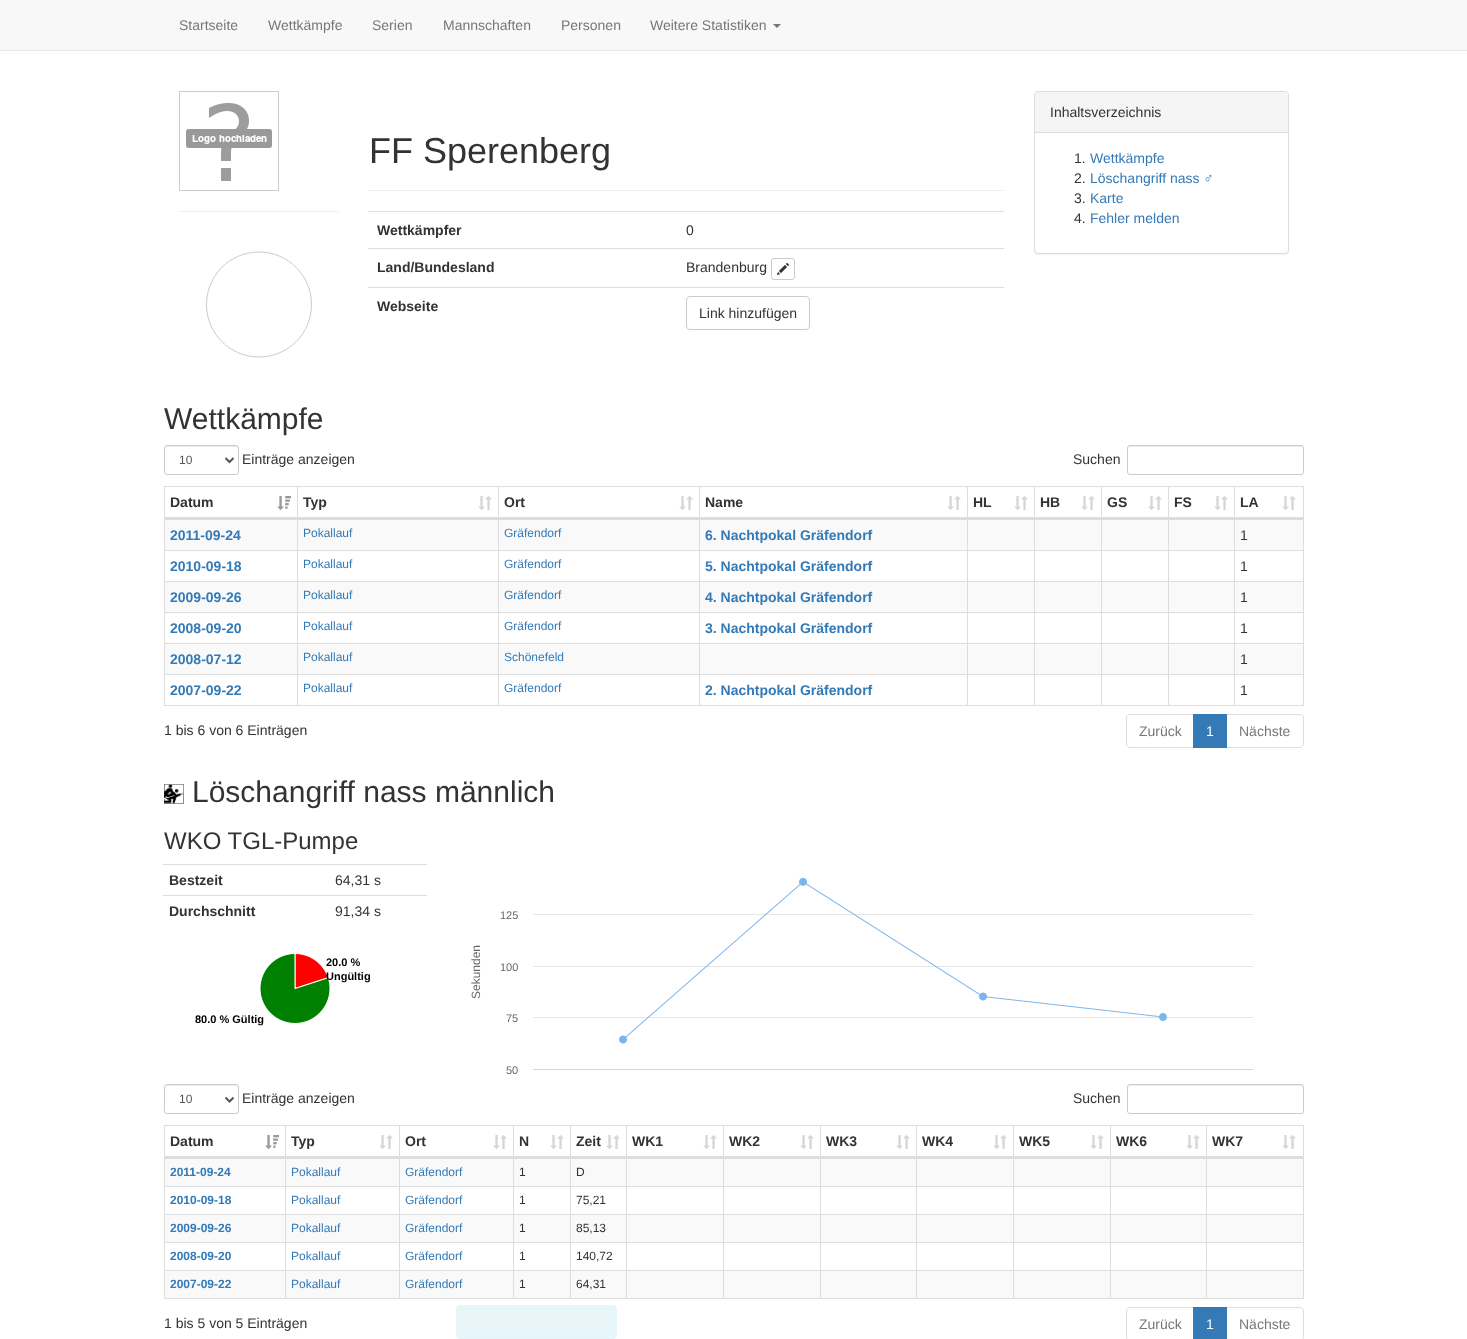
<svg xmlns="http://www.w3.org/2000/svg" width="1467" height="1339">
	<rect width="100%" height="100%" fill="#FFFFFF" />
	<rect x="0" y="0" width="1467" height="50" fill="#F8F8F8" />
	<rect x="0" y="50" width="1467" height="1" fill="#E7E7E7" />
	<g font-family="Liberation Sans" font-size="14" fill="#777777">
		<text x="179" y="30">Startseite</text>
		<text x="268" y="30">Wettkämpfe</text>
		<text x="372" y="30">Serien</text>
		<text x="443" y="30">Mannschaften</text>
		<text x="561" y="30">Personen</text>
		<text x="650" y="30">Weitere Statistiken</text>
	</g>
	<path d="M773 24H781L777 28Z" fill="#777777" />
	<image x="179" y="91" width="100" height="100" href="assets/img1.png" />
	<rect x="179" y="211" width="160" height="1" fill="#EEEEEE" />
	<path d="M259 252C288 252 311.5 275.5 311.5 304.5C311.5 333.5 288 357 259 357C230 357 206.5 333.5 206.5 304.5C206.5 275.5 230 252 259 252" fill="none" stroke="#CCCCCC" />
	<rect x="369" y="190" width="635" height="1" fill="#EEEEEE" />
	<text x="369" y="163" font-family="Liberation Sans" font-size="36" fill="#333333">FF Sperenberg</text>
	<text x="377" y="235" font-family="Liberation Sans" font-size="14" font-weight="700" fill="#333333">Wettkämpfer</text>
	<rect x="368" y="211" width="636" height="1" fill="#DDDDDD" />
	<text x="686" y="235" font-family="Liberation Sans" font-size="14" fill="#333333">0</text>
	<text x="377" y="272" font-family="Liberation Sans" font-size="14" font-weight="700" fill="#333333">Land/Bundesland</text>
	<rect x="368" y="248" width="636" height="1" fill="#DDDDDD" />
	<text x="686" y="272" font-family="Liberation Sans" font-size="14" fill="#333333">Brandenburg</text>
	<rect x="771.5" y="258.5" width="23" height="21" rx="2.5" fill="none" stroke="#CCCCCC" />
	<image x="777" y="263" width="12" height="12" href="assets/img2.png" />
	<text x="377" y="311" font-family="Liberation Sans" font-size="14" font-weight="700" fill="#333333">Webseite</text>
	<rect x="368" y="287" width="636" height="1" fill="#DDDDDD" />
	<rect x="686.5" y="296.5" width="123" height="33" rx="3.5" fill="none" stroke="#CCCCCC" />
	<text x="699" y="318" font-family="Liberation Sans" font-size="14" fill="#333333">Link hinzufügen</text>
	<rect x="1034" y="92" width="255" height="163" rx="4" fill="#000000" fill-opacity="0.05" filter="blur(0.5px)" />
	<rect x="1034.5" y="91.5" width="254" height="162" rx="3.5" fill="#FFFFFF" stroke="#DDDDDD" />
	<path d="M1038 92H1285C1286.5 92 1288 93.5 1288 95V133H1035V95C1035 93.5 1036.5 92 1038 92Z" fill="#F5F5F5" />
	<rect x="1035" y="132" width="253" height="1" fill="#DDDDDD" />
	<g font-family="Liberation Sans" font-size="14" fill="#333333">
		<text x="1050" y="117">Inhaltsverzeichnis</text>
		<text x="1074" y="163">1.</text>
	</g>
	<text x="1090" y="163" font-family="Liberation Sans" font-size="14" fill="#337AB7">Wettkämpfe</text>
	<text x="1074" y="183" font-family="Liberation Sans" font-size="14" fill="#333333">2.</text>
	<text x="1090" y="183" font-family="Liberation Sans" font-size="14" fill="#337AB7">Löschangriff nass ♂</text>
	<text x="1074" y="203" font-family="Liberation Sans" font-size="14" fill="#333333">3.</text>
	<text x="1090" y="203" font-family="Liberation Sans" font-size="14" fill="#337AB7">Karte</text>
	<text x="1074" y="223" font-family="Liberation Sans" font-size="14" fill="#333333">4.</text>
	<text x="1090" y="223" font-family="Liberation Sans" font-size="14" fill="#337AB7">Fehler melden</text>
	<text x="164" y="429" font-family="Liberation Sans" font-size="30" fill="#333333">Wettkämpfe</text>
	<path d="M167 447H236C237 447 238 448 238 449C238 443 228 446 224 446H178C175 446 165 443 165 449C165 448 166 447 167 447Z" fill="#ECECEC" />
	<rect x="164.5" y="445.5" width="74" height="29" rx="2.5" fill="none" stroke="#CCCCCC" />
	<path d="M225.5 458L229.5 462L233.5 458" fill="none" stroke="#555555" stroke-width="2" />
	<text x="179" y="464" font-family="Liberation Sans" font-size="12" fill="#555555">10</text>
	<g font-family="Liberation Sans" font-size="14" fill="#333333">
		<text x="242" y="464">Einträge anzeigen</text>
		<text x="1073" y="464">Suchen</text>
	</g>
	<path d="M1130 447H1301C1302 447 1303 448 1303 449C1303 448 1303 446 1301 446H1130C1128 446 1128 448 1128 449C1128 448 1129 447 1130 447Z" fill="#ECECEC" />
	<rect x="1127.5" y="445.5" width="176" height="29" rx="2.5" fill="none" stroke="#CCCCCC" />
	<rect x="164.5" y="486.5" width="1139" height="219" fill="none" stroke="#DDDDDD" />
	<rect x="165" y="520" width="1138" height="30" fill="#F9F9F9" />
	<rect x="165" y="519" width="1138" height="1" fill="#DDDDDD" />
	<rect x="297" y="487" width="1" height="63" fill="#DDDDDD" />
	<rect x="498" y="487" width="1" height="63" fill="#DDDDDD" />
	<rect x="699" y="487" width="1" height="63" fill="#DDDDDD" />
	<rect x="967" y="487" width="1" height="63" fill="#DDDDDD" />
	<rect x="1034" y="487" width="1" height="63" fill="#DDDDDD" />
	<rect x="1101" y="487" width="1" height="63" fill="#DDDDDD" />
	<rect x="1168" y="487" width="1" height="63" fill="#DDDDDD" />
	<rect x="1234" y="487" width="1" height="63" fill="#DDDDDD" />
	<rect x="165" y="517" width="1138" height="2" fill="#DDDDDD" />
	<text x="170" y="507" font-family="Liberation Sans" font-size="14" font-weight="700" fill="#333333">Datum</text>
	<image x="277" y="496" width="15" height="14" href="assets/img3.png" />
	<text x="303" y="507" font-family="Liberation Sans" font-size="14" font-weight="700" fill="#333333">Typ</text>
	<image x="478" y="496" width="14" height="14" href="assets/img4.png" />
	<text x="504" y="507" font-family="Liberation Sans" font-size="14" font-weight="700" fill="#333333">Ort</text>
	<image x="679" y="496" width="14" height="14" href="assets/img4.png" />
	<text x="705" y="507" font-family="Liberation Sans" font-size="14" font-weight="700" fill="#333333">Name</text>
	<image x="947" y="496" width="14" height="14" href="assets/img4.png" />
	<text x="973" y="507" font-family="Liberation Sans" font-size="14" font-weight="700" fill="#333333">HL</text>
	<image x="1014" y="496" width="14" height="14" href="assets/img4.png" />
	<text x="1040" y="507" font-family="Liberation Sans" font-size="14" font-weight="700" fill="#333333">HB</text>
	<image x="1081" y="496" width="14" height="14" href="assets/img4.png" />
	<text x="1107" y="507" font-family="Liberation Sans" font-size="14" font-weight="700" fill="#333333">GS</text>
	<image x="1148" y="496" width="14" height="14" href="assets/img4.png" />
	<text x="1174" y="507" font-family="Liberation Sans" font-size="14" font-weight="700" fill="#333333">FS</text>
	<image x="1214" y="496" width="14" height="14" href="assets/img4.png" />
	<text x="1240" y="507" font-family="Liberation Sans" font-size="14" font-weight="700" fill="#333333">LA</text>
	<image x="1282" y="496" width="14" height="14" href="assets/img4.png" />
	<text x="170" y="540" font-family="Liberation Sans" font-size="14" font-weight="700" fill="#337AB7">2011-09-24</text>
	<g font-family="Liberation Sans" font-size="12" fill="#337AB7">
		<text x="303" y="537">Pokallauf</text>
		<text x="504" y="537">Gräfendorf</text>
	</g>
	<text x="705" y="540" font-family="Liberation Sans" font-size="14" font-weight="700" fill="#337AB7">6. Nachtpokal Gräfendorf</text>
	<text x="1240" y="540" font-family="Liberation Sans" font-size="14" fill="#333333">1</text>
	<rect x="165" y="550" width="1138" height="1" fill="#DDDDDD" />
	<rect x="297" y="550" width="1" height="31" fill="#DDDDDD" />
	<text x="170" y="571" font-family="Liberation Sans" font-size="14" font-weight="700" fill="#337AB7">2010-09-18</text>
	<rect x="498" y="550" width="1" height="31" fill="#DDDDDD" />
	<text x="303" y="568" font-family="Liberation Sans" font-size="12" fill="#337AB7">Pokallauf</text>
	<rect x="699" y="550" width="1" height="31" fill="#DDDDDD" />
	<text x="504" y="568" font-family="Liberation Sans" font-size="12" fill="#337AB7">Gräfendorf</text>
	<rect x="967" y="550" width="1" height="31" fill="#DDDDDD" />
	<text x="705" y="571" font-family="Liberation Sans" font-size="14" font-weight="700" fill="#337AB7">5. Nachtpokal Gräfendorf</text>
	<rect x="1034" y="550" width="1" height="31" fill="#DDDDDD" />
	<rect x="1101" y="550" width="1" height="31" fill="#DDDDDD" />
	<rect x="1168" y="550" width="1" height="31" fill="#DDDDDD" />
	<rect x="1234" y="550" width="1" height="31" fill="#DDDDDD" />
	<text x="1240" y="571" font-family="Liberation Sans" font-size="14" fill="#333333">1</text>
	<rect x="165" y="582" width="1138" height="30" fill="#F9F9F9" />
	<rect x="165" y="581" width="1138" height="1" fill="#DDDDDD" />
	<rect x="297" y="581" width="1" height="31" fill="#DDDDDD" />
	<text x="170" y="602" font-family="Liberation Sans" font-size="14" font-weight="700" fill="#337AB7">2009-09-26</text>
	<rect x="498" y="581" width="1" height="31" fill="#DDDDDD" />
	<text x="303" y="599" font-family="Liberation Sans" font-size="12" fill="#337AB7">Pokallauf</text>
	<rect x="699" y="581" width="1" height="31" fill="#DDDDDD" />
	<text x="504" y="599" font-family="Liberation Sans" font-size="12" fill="#337AB7">Gräfendorf</text>
	<rect x="967" y="581" width="1" height="31" fill="#DDDDDD" />
	<text x="705" y="602" font-family="Liberation Sans" font-size="14" font-weight="700" fill="#337AB7">4. Nachtpokal Gräfendorf</text>
	<rect x="1034" y="581" width="1" height="31" fill="#DDDDDD" />
	<rect x="1101" y="581" width="1" height="31" fill="#DDDDDD" />
	<rect x="1168" y="581" width="1" height="31" fill="#DDDDDD" />
	<rect x="1234" y="581" width="1" height="31" fill="#DDDDDD" />
	<text x="1240" y="602" font-family="Liberation Sans" font-size="14" fill="#333333">1</text>
	<rect x="165" y="612" width="1138" height="1" fill="#DDDDDD" />
	<rect x="297" y="612" width="1" height="31" fill="#DDDDDD" />
	<text x="170" y="633" font-family="Liberation Sans" font-size="14" font-weight="700" fill="#337AB7">2008-09-20</text>
	<rect x="498" y="612" width="1" height="31" fill="#DDDDDD" />
	<text x="303" y="630" font-family="Liberation Sans" font-size="12" fill="#337AB7">Pokallauf</text>
	<rect x="699" y="612" width="1" height="31" fill="#DDDDDD" />
	<text x="504" y="630" font-family="Liberation Sans" font-size="12" fill="#337AB7">Gräfendorf</text>
	<rect x="967" y="612" width="1" height="31" fill="#DDDDDD" />
	<text x="705" y="633" font-family="Liberation Sans" font-size="14" font-weight="700" fill="#337AB7">3. Nachtpokal Gräfendorf</text>
	<rect x="1034" y="612" width="1" height="31" fill="#DDDDDD" />
	<rect x="1101" y="612" width="1" height="31" fill="#DDDDDD" />
	<rect x="1168" y="612" width="1" height="31" fill="#DDDDDD" />
	<rect x="1234" y="612" width="1" height="31" fill="#DDDDDD" />
	<text x="1240" y="633" font-family="Liberation Sans" font-size="14" fill="#333333">1</text>
	<rect x="165" y="644" width="1138" height="30" fill="#F9F9F9" />
	<rect x="165" y="643" width="1138" height="1" fill="#DDDDDD" />
	<rect x="297" y="643" width="1" height="31" fill="#DDDDDD" />
	<text x="170" y="664" font-family="Liberation Sans" font-size="14" font-weight="700" fill="#337AB7">2008-07-12</text>
	<rect x="498" y="643" width="1" height="31" fill="#DDDDDD" />
	<text x="303" y="661" font-family="Liberation Sans" font-size="12" fill="#337AB7">Pokallauf</text>
	<rect x="699" y="643" width="1" height="31" fill="#DDDDDD" />
	<text x="504" y="661" font-family="Liberation Sans" font-size="12" fill="#337AB7">Schönefeld</text>
	<rect x="967" y="643" width="1" height="31" fill="#DDDDDD" />
	<rect x="1034" y="643" width="1" height="31" fill="#DDDDDD" />
	<rect x="1101" y="643" width="1" height="31" fill="#DDDDDD" />
	<rect x="1168" y="643" width="1" height="31" fill="#DDDDDD" />
	<rect x="1234" y="643" width="1" height="31" fill="#DDDDDD" />
	<text x="1240" y="664" font-family="Liberation Sans" font-size="14" fill="#333333">1</text>
	<rect x="165" y="674" width="1138" height="1" fill="#DDDDDD" />
	<rect x="297" y="674" width="1" height="31" fill="#DDDDDD" />
	<text x="170" y="695" font-family="Liberation Sans" font-size="14" font-weight="700" fill="#337AB7">2007-09-22</text>
	<rect x="498" y="674" width="1" height="31" fill="#DDDDDD" />
	<text x="303" y="692" font-family="Liberation Sans" font-size="12" fill="#337AB7">Pokallauf</text>
	<rect x="699" y="674" width="1" height="31" fill="#DDDDDD" />
	<text x="504" y="692" font-family="Liberation Sans" font-size="12" fill="#337AB7">Gräfendorf</text>
	<rect x="967" y="674" width="1" height="31" fill="#DDDDDD" />
	<text x="705" y="695" font-family="Liberation Sans" font-size="14" font-weight="700" fill="#337AB7">2. Nachtpokal Gräfendorf</text>
	<rect x="1034" y="674" width="1" height="31" fill="#DDDDDD" />
	<rect x="1101" y="674" width="1" height="31" fill="#DDDDDD" />
	<rect x="1168" y="674" width="1" height="31" fill="#DDDDDD" />
	<rect x="1234" y="674" width="1" height="31" fill="#DDDDDD" />
	<g font-family="Liberation Sans" font-size="14" fill="#333333">
		<text x="1240" y="695">1</text>
		<text x="164" y="735">1 bis 6 von 6 Einträgen</text>
	</g>
	<path d="M1130 714.5H1193.5V747.5H1130C1128 747.5 1126.5 746 1126.5 744V718C1126.5 716 1128 714.5 1130 714.5Z" fill="none" stroke="#DDDDDD" />
	<text x="1139" y="736" font-family="Liberation Sans" font-size="14" fill="#777777">Zurück</text>
	<path d="M1226.5 714.5H1300C1302 714.5 1303.5 716 1303.5 718V744C1303.5 746 1302 747.5 1300 747.5H1226.5Z" fill="none" stroke="#DDDDDD" />
	<rect x="1193" y="714" width="34" height="34" fill="#337AB7" />
	<text x="1206" y="736" font-family="Liberation Sans" font-size="14" fill="#FFFFFF">1</text>
	<text x="1239" y="736" font-family="Liberation Sans" font-size="14" fill="#777777">Nächste</text>
	<image x="164" y="784" width="20" height="20" href="assets/img5.png" />
	<text x="192" y="802" font-family="Liberation Sans" font-size="30" fill="#333333">Löschangriff nass männlich</text>
	<text x="164" y="849" font-family="Liberation Sans" font-size="24" fill="#333333">WKO TGL-Pumpe</text>
	<text x="169" y="885" font-family="Liberation Sans" font-size="14" font-weight="700" fill="#333333">Bestzeit</text>
	<rect x="163" y="864" width="264" height="1" fill="#DDDDDD" />
	<text x="335" y="885" font-family="Liberation Sans" font-size="14" fill="#333333">64,31 s</text>
	<text x="169" y="916" font-family="Liberation Sans" font-size="14" font-weight="700" fill="#333333">Durchschnitt</text>
	<rect x="163" y="895" width="264" height="1" fill="#DDDDDD" />
	<text x="335" y="916" font-family="Liberation Sans" font-size="14" fill="#333333">91,34 s</text>
	<image x="260" y="953" width="70" height="71" href="assets/img6.png" />
	<g font-family="Liberation Sans" font-size="11" font-weight="700" fill="#000000">
		<text x="326" y="966">20.0 %</text>
		<text x="326" y="980">Ungültig</text>
		<text x="195" y="1023">80.0 % Gültig</text>
	</g>
	<text x="500" y="919" font-family="Liberation Sans" font-size="11" fill="#666666">125</text>
	<image x="533" y="877" width="720" height="193" href="assets/img7.png" />
	<text x="480" y="999" transform="rotate(-90 480 999)" font-family="Liberation Sans" font-size="12" fill="#666666">Sekunden</text>
	<g font-family="Liberation Sans" font-size="11" fill="#666666">
		<text x="500" y="971">100</text>
		<text x="506" y="1022">75</text>
		<text x="506" y="1074">50</text>
	</g>
	<path d="M167 1086H236C237 1086 238 1087 238 1088C238 1082 228 1085 224 1085H178C175 1085 165 1082 165 1088C165 1087 166 1086 167 1086Z" fill="#ECECEC" />
	<rect x="164.5" y="1084.5" width="74" height="29" rx="2.5" fill="none" stroke="#CCCCCC" />
	<path d="M225.5 1097.5L229.5 1101.5L233.5 1097.5" fill="none" stroke="#555555" stroke-width="2" />
	<text x="179" y="1103" font-family="Liberation Sans" font-size="12" fill="#555555">10</text>
	<g font-family="Liberation Sans" font-size="14" fill="#333333">
		<text x="242" y="1103">Einträge anzeigen</text>
		<text x="1073" y="1103">Suchen</text>
	</g>
	<path d="M1130 1086H1301C1302 1086 1303 1087 1303 1088C1303 1087 1303 1085 1301 1085H1130C1128 1085 1128 1087 1128 1088C1128 1087 1129 1086 1130 1086Z" fill="#ECECEC" />
	<rect x="1127.5" y="1084.5" width="176" height="29" rx="2.5" fill="none" stroke="#CCCCCC" />
	<rect x="164.5" y="1125.5" width="1139" height="173" fill="none" stroke="#DDDDDD" />
	<rect x="165" y="1159" width="1138" height="27" fill="#F9F9F9" />
	<rect x="165" y="1158" width="1138" height="1" fill="#DDDDDD" />
	<rect x="285" y="1126" width="1" height="60" fill="#DDDDDD" />
	<rect x="399" y="1126" width="1" height="60" fill="#DDDDDD" />
	<rect x="513" y="1126" width="1" height="60" fill="#DDDDDD" />
	<rect x="570" y="1126" width="1" height="60" fill="#DDDDDD" />
	<rect x="626" y="1126" width="1" height="60" fill="#DDDDDD" />
	<rect x="723" y="1126" width="1" height="60" fill="#DDDDDD" />
	<rect x="820" y="1126" width="1" height="60" fill="#DDDDDD" />
	<rect x="916" y="1126" width="1" height="60" fill="#DDDDDD" />
	<rect x="1013" y="1126" width="1" height="60" fill="#DDDDDD" />
	<rect x="1110" y="1126" width="1" height="60" fill="#DDDDDD" />
	<rect x="1206" y="1126" width="1" height="60" fill="#DDDDDD" />
	<rect x="165" y="1156" width="1138" height="2" fill="#DDDDDD" />
	<text x="170" y="1146" font-family="Liberation Sans" font-size="14" font-weight="700" fill="#333333">Datum</text>
	<image x="265" y="1135" width="15" height="14" href="assets/img3.png" />
	<text x="291" y="1146" font-family="Liberation Sans" font-size="14" font-weight="700" fill="#333333">Typ</text>
	<image x="379" y="1135" width="14" height="14" href="assets/img4.png" />
	<text x="405" y="1146" font-family="Liberation Sans" font-size="14" font-weight="700" fill="#333333">Ort</text>
	<image x="493" y="1135" width="14" height="14" href="assets/img4.png" />
	<text x="519" y="1146" font-family="Liberation Sans" font-size="14" font-weight="700" fill="#333333">N</text>
	<image x="550" y="1135" width="14" height="14" href="assets/img4.png" />
	<text x="576" y="1146" font-family="Liberation Sans" font-size="14" font-weight="700" fill="#333333">Zeit</text>
	<image x="606" y="1135" width="14" height="14" href="assets/img4.png" />
	<text x="632" y="1146" font-family="Liberation Sans" font-size="14" font-weight="700" fill="#333333">WK1</text>
	<image x="703" y="1135" width="14" height="14" href="assets/img4.png" />
	<text x="729" y="1146" font-family="Liberation Sans" font-size="14" font-weight="700" fill="#333333">WK2</text>
	<image x="800" y="1135" width="14" height="14" href="assets/img4.png" />
	<text x="826" y="1146" font-family="Liberation Sans" font-size="14" font-weight="700" fill="#333333">WK3</text>
	<image x="896" y="1135" width="14" height="14" href="assets/img4.png" />
	<text x="922" y="1146" font-family="Liberation Sans" font-size="14" font-weight="700" fill="#333333">WK4</text>
	<image x="993" y="1135" width="14" height="14" href="assets/img4.png" />
	<text x="1019" y="1146" font-family="Liberation Sans" font-size="14" font-weight="700" fill="#333333">WK5</text>
	<image x="1090" y="1135" width="14" height="14" href="assets/img4.png" />
	<text x="1116" y="1146" font-family="Liberation Sans" font-size="14" font-weight="700" fill="#333333">WK6</text>
	<image x="1186" y="1135" width="14" height="14" href="assets/img4.png" />
	<text x="1212" y="1146" font-family="Liberation Sans" font-size="14" font-weight="700" fill="#333333">WK7</text>
	<image x="1282" y="1135" width="14" height="14" href="assets/img4.png" />
	<text x="170" y="1176" font-family="Liberation Sans" font-size="12" font-weight="700" fill="#337AB7">2011-09-24</text>
	<g font-family="Liberation Sans" font-size="12" fill="#337AB7">
		<text x="291" y="1176">Pokallauf</text>
		<text x="405" y="1176">Gräfendorf</text>
	</g>
	<g font-family="Liberation Sans" font-size="12" fill="#333333">
		<text x="519" y="1176">1</text>
		<text x="576" y="1176">D</text>
	</g>
	<rect x="165" y="1186" width="1138" height="1" fill="#DDDDDD" />
	<rect x="285" y="1186" width="1" height="28" fill="#DDDDDD" />
	<text x="170" y="1204" font-family="Liberation Sans" font-size="12" font-weight="700" fill="#337AB7">2010-09-18</text>
	<rect x="399" y="1186" width="1" height="28" fill="#DDDDDD" />
	<text x="291" y="1204" font-family="Liberation Sans" font-size="12" fill="#337AB7">Pokallauf</text>
	<rect x="513" y="1186" width="1" height="28" fill="#DDDDDD" />
	<text x="405" y="1204" font-family="Liberation Sans" font-size="12" fill="#337AB7">Gräfendorf</text>
	<rect x="570" y="1186" width="1" height="28" fill="#DDDDDD" />
	<text x="519" y="1204" font-family="Liberation Sans" font-size="12" fill="#333333">1</text>
	<rect x="626" y="1186" width="1" height="28" fill="#DDDDDD" />
	<text x="576" y="1204" font-family="Liberation Sans" font-size="12" fill="#333333">75,21</text>
	<rect x="723" y="1186" width="1" height="28" fill="#DDDDDD" />
	<rect x="820" y="1186" width="1" height="28" fill="#DDDDDD" />
	<rect x="916" y="1186" width="1" height="28" fill="#DDDDDD" />
	<rect x="1013" y="1186" width="1" height="28" fill="#DDDDDD" />
	<rect x="1110" y="1186" width="1" height="28" fill="#DDDDDD" />
	<rect x="1206" y="1186" width="1" height="28" fill="#DDDDDD" />
	<rect x="165" y="1215" width="1138" height="27" fill="#F9F9F9" />
	<rect x="165" y="1214" width="1138" height="1" fill="#DDDDDD" />
	<rect x="285" y="1214" width="1" height="28" fill="#DDDDDD" />
	<text x="170" y="1232" font-family="Liberation Sans" font-size="12" font-weight="700" fill="#337AB7">2009-09-26</text>
	<rect x="399" y="1214" width="1" height="28" fill="#DDDDDD" />
	<text x="291" y="1232" font-family="Liberation Sans" font-size="12" fill="#337AB7">Pokallauf</text>
	<rect x="513" y="1214" width="1" height="28" fill="#DDDDDD" />
	<text x="405" y="1232" font-family="Liberation Sans" font-size="12" fill="#337AB7">Gräfendorf</text>
	<rect x="570" y="1214" width="1" height="28" fill="#DDDDDD" />
	<text x="519" y="1232" font-family="Liberation Sans" font-size="12" fill="#333333">1</text>
	<rect x="626" y="1214" width="1" height="28" fill="#DDDDDD" />
	<text x="576" y="1232" font-family="Liberation Sans" font-size="12" fill="#333333">85,13</text>
	<rect x="723" y="1214" width="1" height="28" fill="#DDDDDD" />
	<rect x="820" y="1214" width="1" height="28" fill="#DDDDDD" />
	<rect x="916" y="1214" width="1" height="28" fill="#DDDDDD" />
	<rect x="1013" y="1214" width="1" height="28" fill="#DDDDDD" />
	<rect x="1110" y="1214" width="1" height="28" fill="#DDDDDD" />
	<rect x="1206" y="1214" width="1" height="28" fill="#DDDDDD" />
	<rect x="165" y="1242" width="1138" height="1" fill="#DDDDDD" />
	<rect x="285" y="1242" width="1" height="28" fill="#DDDDDD" />
	<text x="170" y="1260" font-family="Liberation Sans" font-size="12" font-weight="700" fill="#337AB7">2008-09-20</text>
	<rect x="399" y="1242" width="1" height="28" fill="#DDDDDD" />
	<text x="291" y="1260" font-family="Liberation Sans" font-size="12" fill="#337AB7">Pokallauf</text>
	<rect x="513" y="1242" width="1" height="28" fill="#DDDDDD" />
	<text x="405" y="1260" font-family="Liberation Sans" font-size="12" fill="#337AB7">Gräfendorf</text>
	<rect x="570" y="1242" width="1" height="28" fill="#DDDDDD" />
	<text x="519" y="1260" font-family="Liberation Sans" font-size="12" fill="#333333">1</text>
	<rect x="626" y="1242" width="1" height="28" fill="#DDDDDD" />
	<text x="576" y="1260" font-family="Liberation Sans" font-size="12" fill="#333333">140,72</text>
	<rect x="723" y="1242" width="1" height="28" fill="#DDDDDD" />
	<rect x="820" y="1242" width="1" height="28" fill="#DDDDDD" />
	<rect x="916" y="1242" width="1" height="28" fill="#DDDDDD" />
	<rect x="1013" y="1242" width="1" height="28" fill="#DDDDDD" />
	<rect x="1110" y="1242" width="1" height="28" fill="#DDDDDD" />
	<rect x="1206" y="1242" width="1" height="28" fill="#DDDDDD" />
	<rect x="165" y="1271" width="1138" height="27" fill="#F9F9F9" />
	<rect x="165" y="1270" width="1138" height="1" fill="#DDDDDD" />
	<rect x="285" y="1270" width="1" height="28" fill="#DDDDDD" />
	<text x="170" y="1288" font-family="Liberation Sans" font-size="12" font-weight="700" fill="#337AB7">2007-09-22</text>
	<rect x="399" y="1270" width="1" height="28" fill="#DDDDDD" />
	<text x="291" y="1288" font-family="Liberation Sans" font-size="12" fill="#337AB7">Pokallauf</text>
	<rect x="513" y="1270" width="1" height="28" fill="#DDDDDD" />
	<text x="405" y="1288" font-family="Liberation Sans" font-size="12" fill="#337AB7">Gräfendorf</text>
	<rect x="570" y="1270" width="1" height="28" fill="#DDDDDD" />
	<text x="519" y="1288" font-family="Liberation Sans" font-size="12" fill="#333333">1</text>
	<rect x="626" y="1270" width="1" height="28" fill="#DDDDDD" />
	<text x="576" y="1288" font-family="Liberation Sans" font-size="12" fill="#333333">64,31</text>
	<rect x="723" y="1270" width="1" height="28" fill="#DDDDDD" />
	<rect x="820" y="1270" width="1" height="28" fill="#DDDDDD" />
	<rect x="916" y="1270" width="1" height="28" fill="#DDDDDD" />
	<rect x="1013" y="1270" width="1" height="28" fill="#DDDDDD" />
	<rect x="1110" y="1270" width="1" height="28" fill="#DDDDDD" />
	<rect x="1206" y="1270" width="1" height="28" fill="#DDDDDD" />
	<text x="164" y="1328" font-family="Liberation Sans" font-size="14" fill="#333333">1 bis 5 von 5 Einträgen</text>
	<rect x="456.5" y="1305.5" width="160" height="33" rx="3.5" fill="#E8F6FA" stroke="#E5F5FA" />
	<path d="M1130 1307.5H1193.5V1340.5H1130C1128 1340.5 1126.5 1339 1126.5 1337V1311C1126.5 1309 1128 1307.5 1130 1307.5Z" fill="none" stroke="#DDDDDD" />
	<text x="1139" y="1329" font-family="Liberation Sans" font-size="14" fill="#777777">Zurück</text>
	<path d="M1226.5 1307.5H1300C1302 1307.5 1303.5 1309 1303.5 1311V1337C1303.5 1339 1302 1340.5 1300 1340.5H1226.5Z" fill="none" stroke="#DDDDDD" />
	<rect x="1193" y="1307" width="34" height="32" fill="#337AB7" />
	<text x="1206" y="1329" font-family="Liberation Sans" font-size="14" fill="#FFFFFF">1</text>
	<text x="1239" y="1329" font-family="Liberation Sans" font-size="14" fill="#777777">Nächste</text>
</svg>
